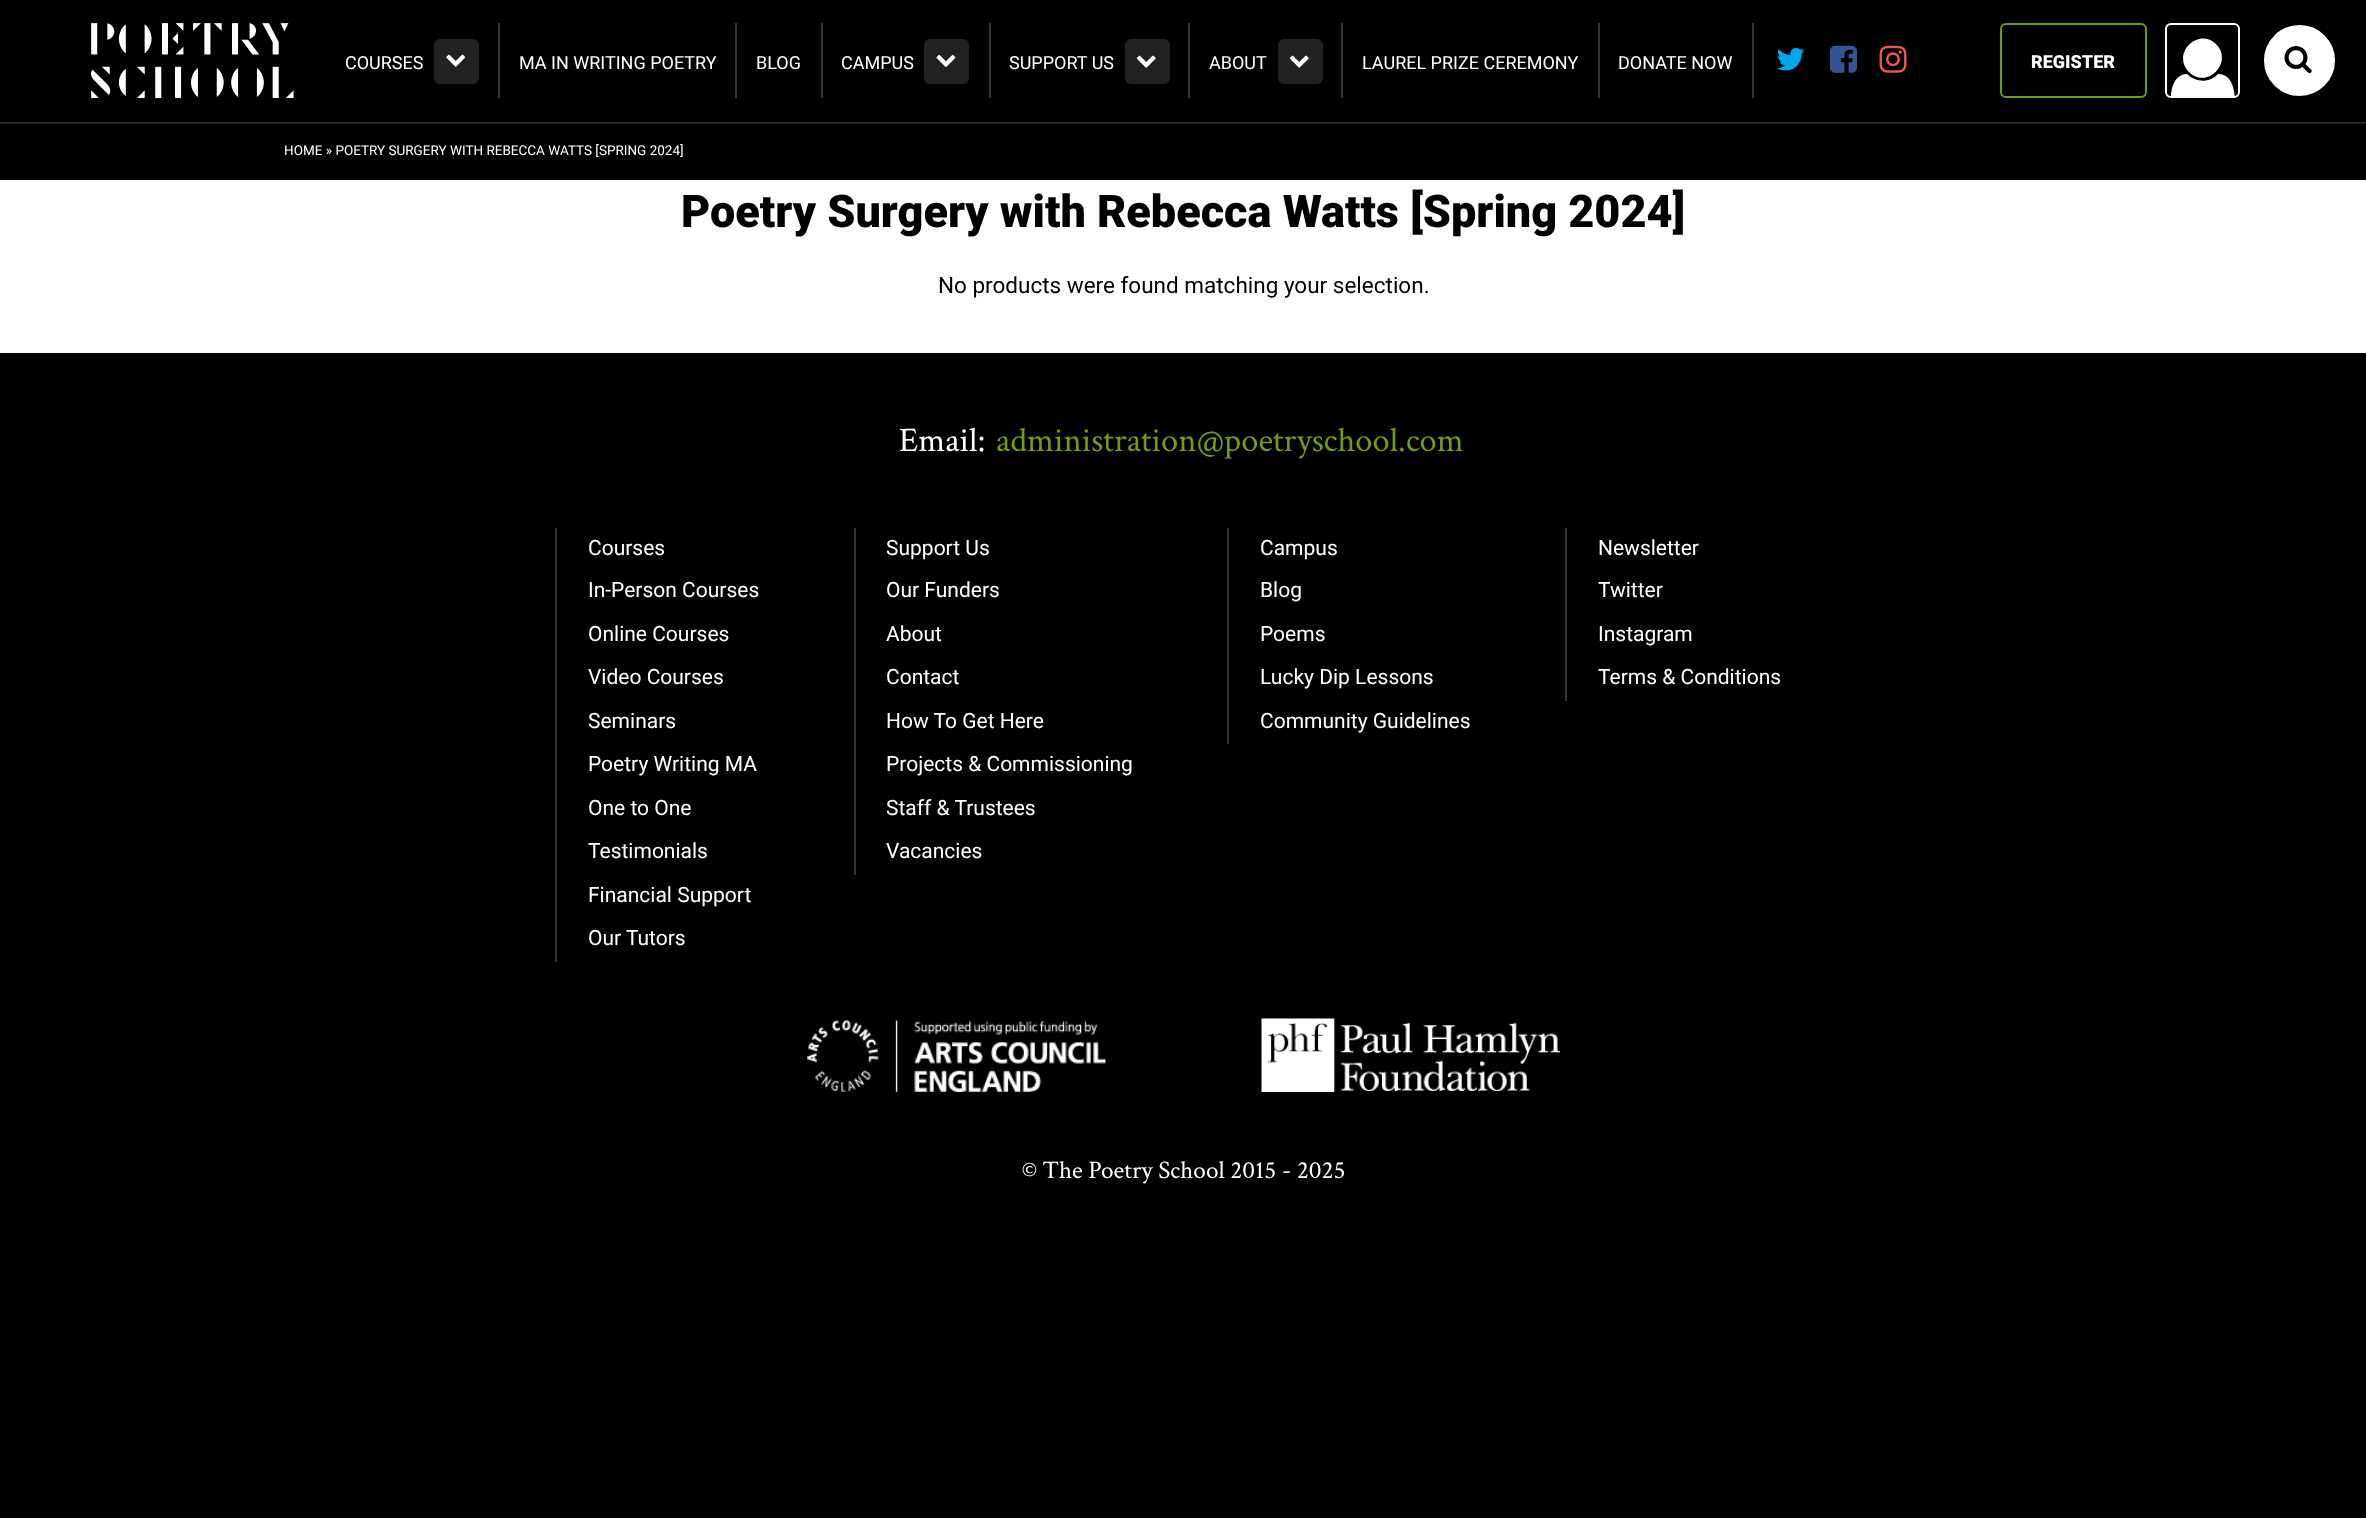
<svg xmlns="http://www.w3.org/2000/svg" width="2366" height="1518">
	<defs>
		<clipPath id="clip1"><rect x="2166" y="24" width="72" height="72" /></clipPath>
	</defs>
	<rect width="100%" height="100%" fill="#000000" />
	<rect x="0" y="180" width="2366" height="173" fill="#FFFFFF" />
	<rect x="0" y="122" width="2366" height="2" fill="#222222" />
	<image x="91" y="23" width="203" height="75" href="assets/img1.png" />
	<rect x="498" y="23" width="2" height="75" fill="#333333" />
	<text x="345" y="69" font-family="Roboto" font-size="18" fill="#FFFFFF">COURSES</text>
	<rect x="434" y="39" width="45" height="45" rx="6" fill="#222222" />
	<image x="446" y="54" width="20" height="13" href="assets/img2.png" />
	<rect x="735" y="23" width="2" height="75" fill="#333333" />
	<text x="519" y="69" font-family="Roboto" font-size="18" fill="#FFFFFF">MA IN WRITING POETRY</text>
	<rect x="821" y="23" width="2" height="75" fill="#333333" />
	<text x="756" y="69" font-family="Roboto" font-size="18" fill="#FFFFFF">BLOG</text>
	<rect x="989" y="23" width="2" height="75" fill="#333333" />
	<text x="841" y="69" font-family="Roboto" font-size="18" fill="#FFFFFF">CAMPUS</text>
	<rect x="924" y="39" width="45" height="45" rx="6" fill="#222222" />
	<image x="936" y="54" width="20" height="13" href="assets/img3.png" />
	<rect x="1188" y="23" width="2" height="75" fill="#333333" />
	<text x="1009" y="69" font-family="Roboto" font-size="18" fill="#FFFFFF">SUPPORT US</text>
	<rect x="1125" y="39" width="45" height="45" rx="6" fill="#222222" />
	<image x="1136" y="55" width="20" height="13" href="assets/img4.png" />
	<rect x="1341" y="23" width="2" height="75" fill="#333333" />
	<text x="1209" y="69" font-family="Roboto" font-size="18" fill="#FFFFFF">ABOUT</text>
	<rect x="1278" y="39" width="45" height="45" rx="6" fill="#222222" />
	<image x="1289" y="55" width="20" height="13" href="assets/img5.png" />
	<rect x="1598" y="23" width="2" height="75" fill="#333333" />
	<text x="1362" y="69" font-family="Roboto" font-size="18" fill="#FFFFFF">LAUREL PRIZE CEREMONY</text>
	<rect x="1752" y="23" width="2" height="75" fill="#333333" />
	<text x="1618" y="69" font-family="Roboto" font-size="18" fill="#FFFFFF">DONATE NOW</text>
	<image x="1777" y="48" width="28" height="23" href="assets/img6.png" />
	<image x="1830" y="45" width="27" height="28" href="assets/img7.png" />
	<image x="1879" y="45" width="28" height="28" href="assets/img8.png" />
	<rect x="2001" y="24" width="145" height="73" rx="5" fill="none" stroke="#719D0F" stroke-width="2" />
	<text x="2031" y="68" font-family="Roboto" font-size="18" font-weight="900" fill="#FFFFFF">REGISTER</text>
	<rect x="2166" y="24" width="73" height="73" rx="5" fill="none" stroke="#FFFFFF" stroke-width="2" />
	<g clip-path="url(#clip1)">
		<path d="M2235 103C2235 108 2232 114 2226 116H2188C2186 116 2181 117 2178 115C2175 114 2172 111 2171 108C2170 104 2170 101 2171 97C2171 88 2175 74 2187 74C2196 83 2210 83 2218 74C2233 74 2235 92 2235 103ZM2216 44C2234 62 2207 90 2189 72C2171 54 2198 27 2216 44Z" fill="#FFFFFF" />
	</g>
	<circle cx="2299.5" cy="60.5" r="36.5" fill="#FFFFFF" stroke="#000000" stroke-width="2" />
	<image x="2284" y="46" width="28" height="28" href="assets/img9.png" />
	<text x="284" y="155" font-family="Roboto" font-size="13.5" fill="#FFFFFF">HOME » POETRY SURGERY WITH REBECCA WATTS [SPRING 2024]</text>
	<text x="681" y="227" font-family="Roboto" font-size="45" font-weight="900" fill="#000000">Poetry Surgery with Rebecca Watts [Spring 2024]</text>
	<text x="938" y="293" font-family="Roboto" font-size="22.5" fill="#000000">No products were found matching your selection.</text>
	<text x="899" y="451" font-family="Crimson Text" font-size="34.5" fill="#FFFFFF">Email:</text>
	<text x="996" y="451" font-family="Crimson Text" font-size="34.5" fill="#719D0F">administration@poetryschool.com</text>
	<rect x="555" y="528" width="2" height="434" fill="#333333" />
	<g font-family="Roboto" font-size="21" fill="#FFFFFF">
		<text x="588" y="555">Courses</text>
		<text x="588" y="597">In-Person Courses</text>
		<text x="588" y="641">Online Courses</text>
		<text x="588" y="684">Video Courses</text>
		<text x="588" y="728">Seminars</text>
		<text x="588" y="771">Poetry Writing MA</text>
		<text x="588" y="815">One to One</text>
		<text x="588" y="858">Testimonials</text>
		<text x="588" y="902">Financial Support</text>
		<text x="588" y="945">Our Tutors</text>
	</g>
	<rect x="854" y="528" width="2" height="347" fill="#333333" />
	<g font-family="Roboto" font-size="21" fill="#FFFFFF">
		<text x="886" y="555">Support Us</text>
		<text x="886" y="597">Our Funders</text>
		<text x="886" y="641">About</text>
		<text x="886" y="684">Contact</text>
		<text x="886" y="728">How To Get Here</text>
		<text x="886" y="771">Projects &amp; Commissioning</text>
		<text x="886" y="815">Staff &amp; Trustees</text>
		<text x="886" y="858">Vacancies</text>
	</g>
	<rect x="1227" y="528" width="2" height="216" fill="#333333" />
	<g font-family="Roboto" font-size="21" fill="#FFFFFF">
		<text x="1260" y="555">Campus</text>
		<text x="1260" y="597">Blog</text>
		<text x="1260" y="641">Poems</text>
		<text x="1260" y="684">Lucky Dip Lessons</text>
		<text x="1260" y="728">Community Guidelines</text>
	</g>
	<rect x="1565" y="528" width="2" height="173" fill="#333333" />
	<g font-family="Roboto" font-size="21" fill="#FFFFFF">
		<text x="1598" y="555">Newsletter</text>
		<text x="1598" y="597">Twitter</text>
		<text x="1598" y="641">Instagram</text>
		<text x="1598" y="684">Terms &amp; Conditions</text>
	</g>
	<image x="807" y="1020" width="299" height="72" href="assets/img10.png" />
	<image x="1261" y="1018" width="299" height="74" href="assets/img11.png" />
	<text x="1022" y="1178" font-family="Crimson Text" font-size="25.25" fill="#FFFFFF">© The Poetry School 2015 - 2025</text>
</svg>
